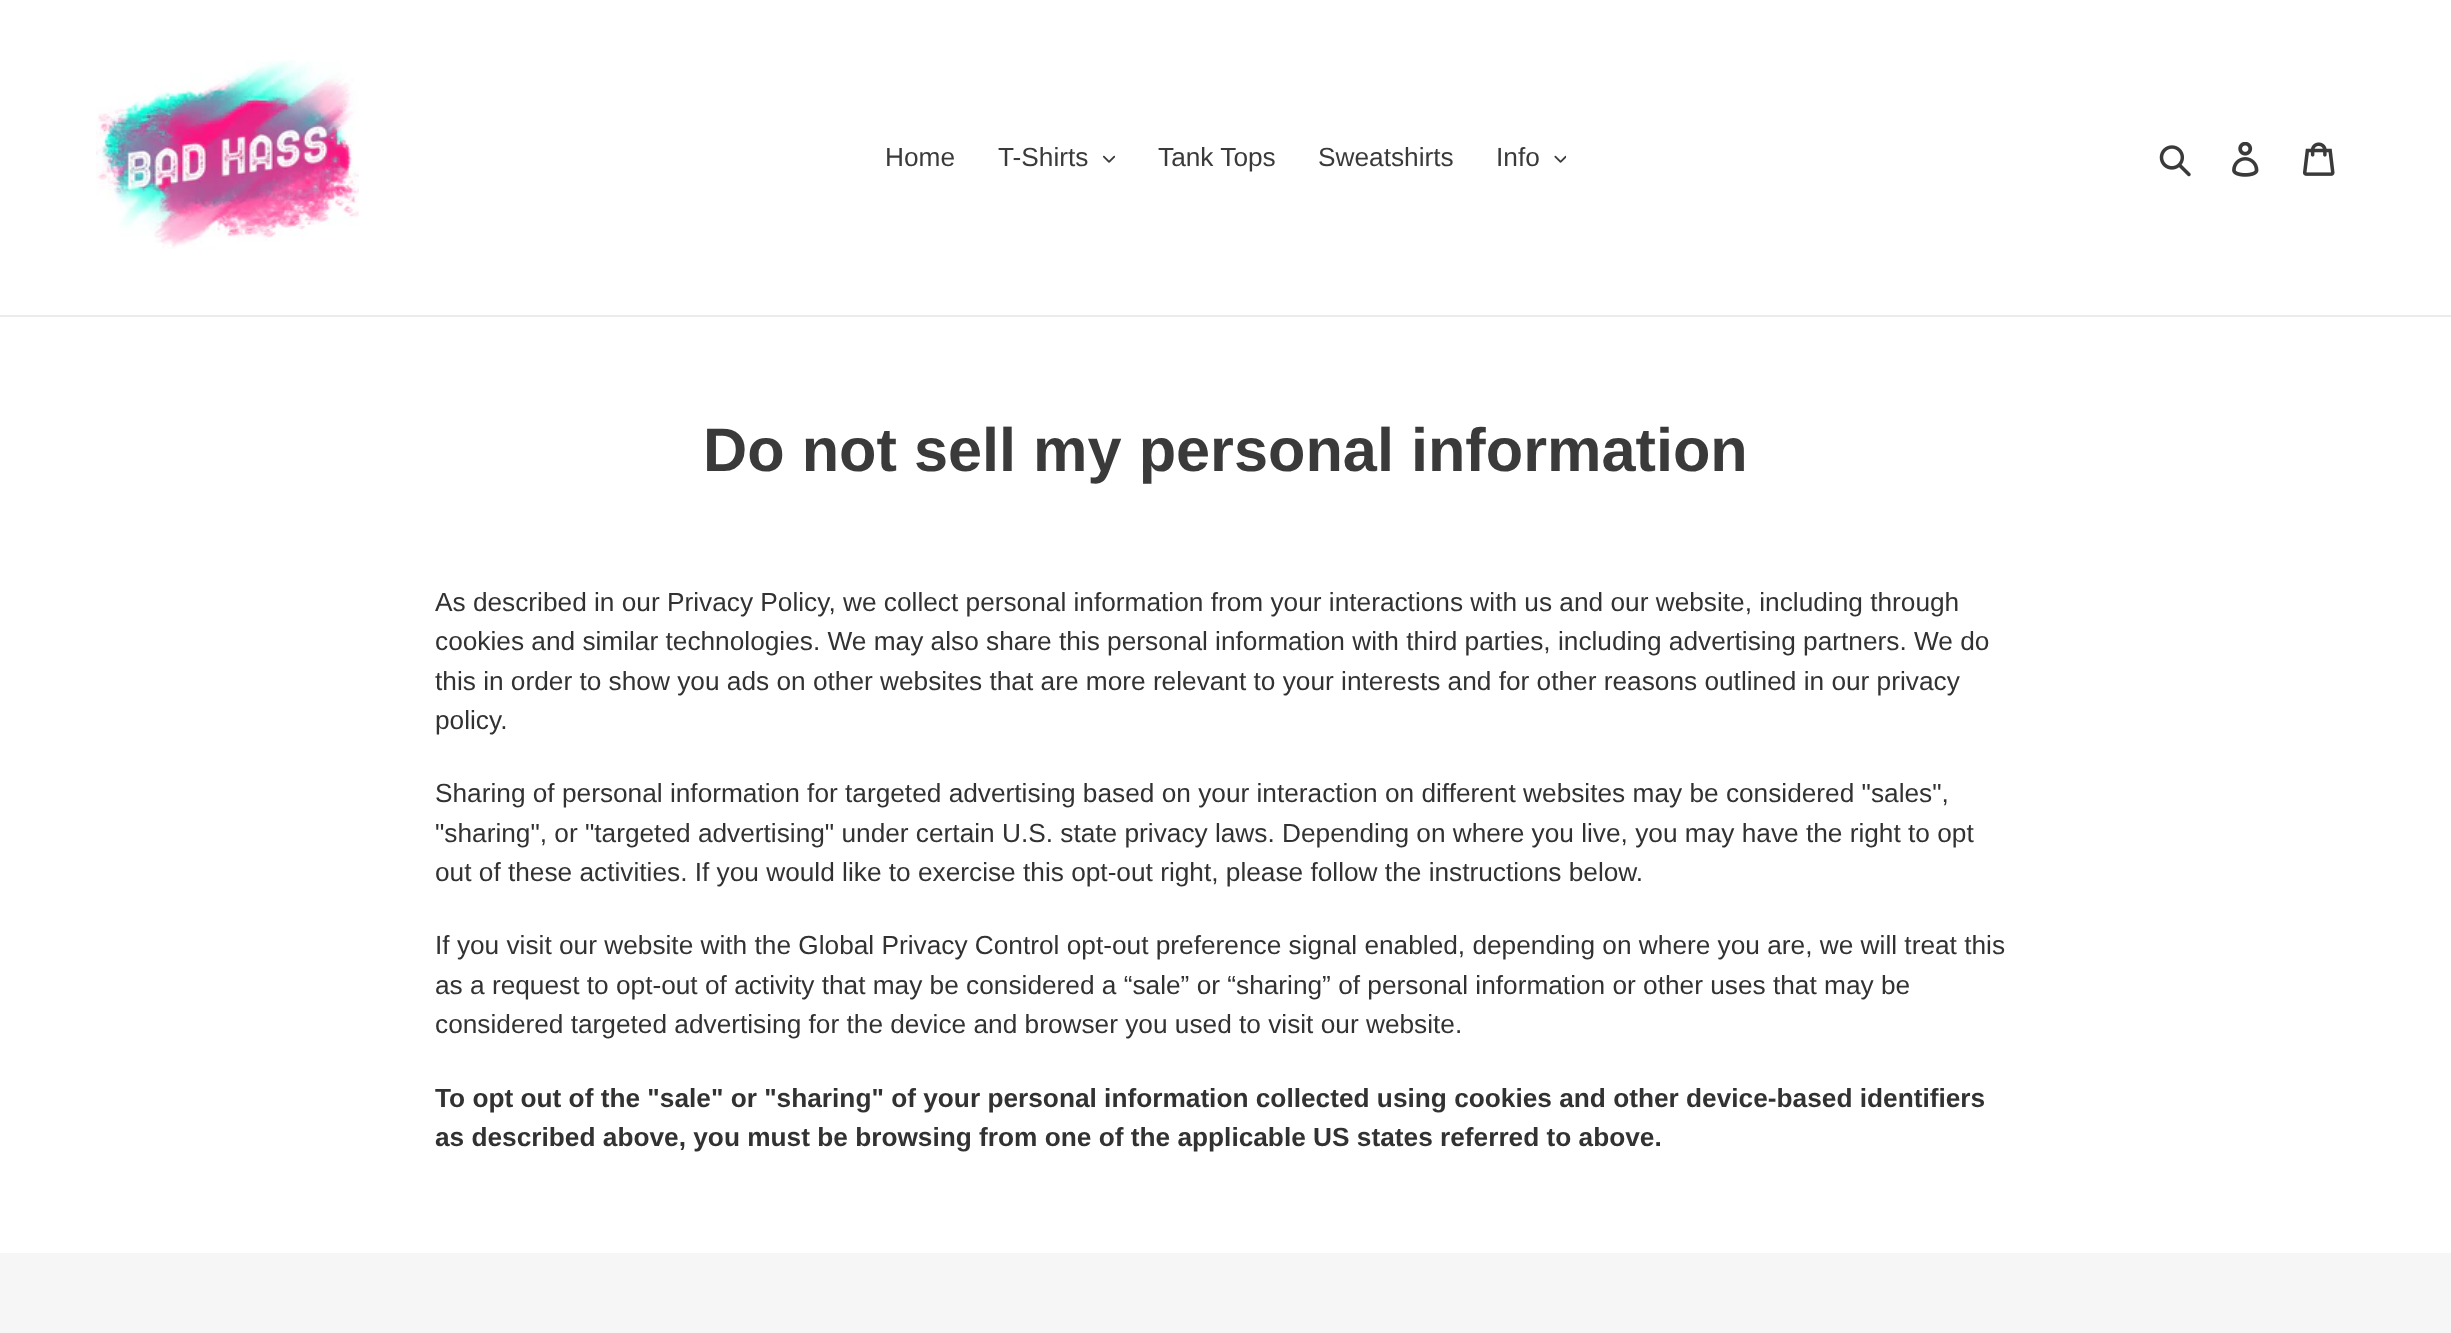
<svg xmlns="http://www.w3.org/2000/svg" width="2451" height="1333">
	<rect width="100%" height="100%" fill="#FFFFFF" />
	<rect x="0" y="315" width="2451" height="2" fill="#EBEBEB" />
	<image x="96" y="60" width="263" height="189" href="assets/img1.png" />
	<g font-family="Liberation Sans" font-size="26.25" fill="#3A3A3A">
		<text x="885" y="166">Home</text>
		<text x="998" y="166">T-Shirts</text>
	</g>
	<image x="1103" y="155" width="12" height="8" href="assets/img2.png" />
	<g font-family="Liberation Sans" font-size="26.25" fill="#3A3A3A">
		<text x="1158" y="166">Tank Tops</text>
		<text x="1318" y="166">Sweatshirts</text>
		<text x="1496" y="166">Info</text>
	</g>
	<image x="1554" y="155" width="12" height="8" href="assets/img3.png" />
	<image x="2159" y="145" width="32" height="32" href="assets/img4.png" />
	<image x="2232" y="142" width="27" height="35" href="assets/img5.png" />
	<image x="2303" y="142" width="32" height="34" href="assets/img6.png" />
	<text x="703" y="471" font-family="Liberation Sans" font-size="61.25" font-weight="700" fill="#3A3A3A">Do not sell my personal information</text>
	<g font-family="Liberation Sans" font-size="26.25" fill="#333232">
		<text x="435" y="611">As described in our Privacy Policy, we collect personal information from your interactions with us and our website, including through</text>
		<text x="435" y="650">cookies and similar technologies. We may also share this personal information with third parties, including advertising partners. We do</text>
		<text x="435" y="690">this in order to show you ads on other websites that are more relevant to your interests and for other reasons outlined in our privacy</text>
		<text x="435" y="729">policy.</text>
		<text x="435" y="802">Sharing of personal information for targeted advertising based on your interaction on different websites may be considered "sales",</text>
		<text x="435" y="842">"sharing", or "targeted advertising" under certain U.S. state privacy laws. Depending on where you live, you may have the right to opt</text>
		<text x="435" y="881">out of these activities. If you would like to exercise this opt-out right, please follow the instructions below.</text>
		<text x="435" y="954">If you visit our website with the Global Privacy Control opt-out preference signal enabled, depending on where you are, we will treat this</text>
		<text x="435" y="994">as a request to opt-out of activity that may be considered a “sale” or “sharing” of personal information or other uses that may be</text>
		<text x="435" y="1033">considered targeted advertising for the device and browser you used to visit our website.</text>
	</g>
	<g font-family="Liberation Sans" font-size="26.25" font-weight="700" fill="#333232">
		<text x="435" y="1107">To opt out of the "sale" or "sharing" of your personal information collected using cookies and other device-based identifiers</text>
		<text x="435" y="1146">as described above, you must be browsing from one of the applicable US states referred to above.</text>
	</g>
	<rect x="0" y="1253" width="2451" height="80" fill="#F6F6F6" />
</svg>
